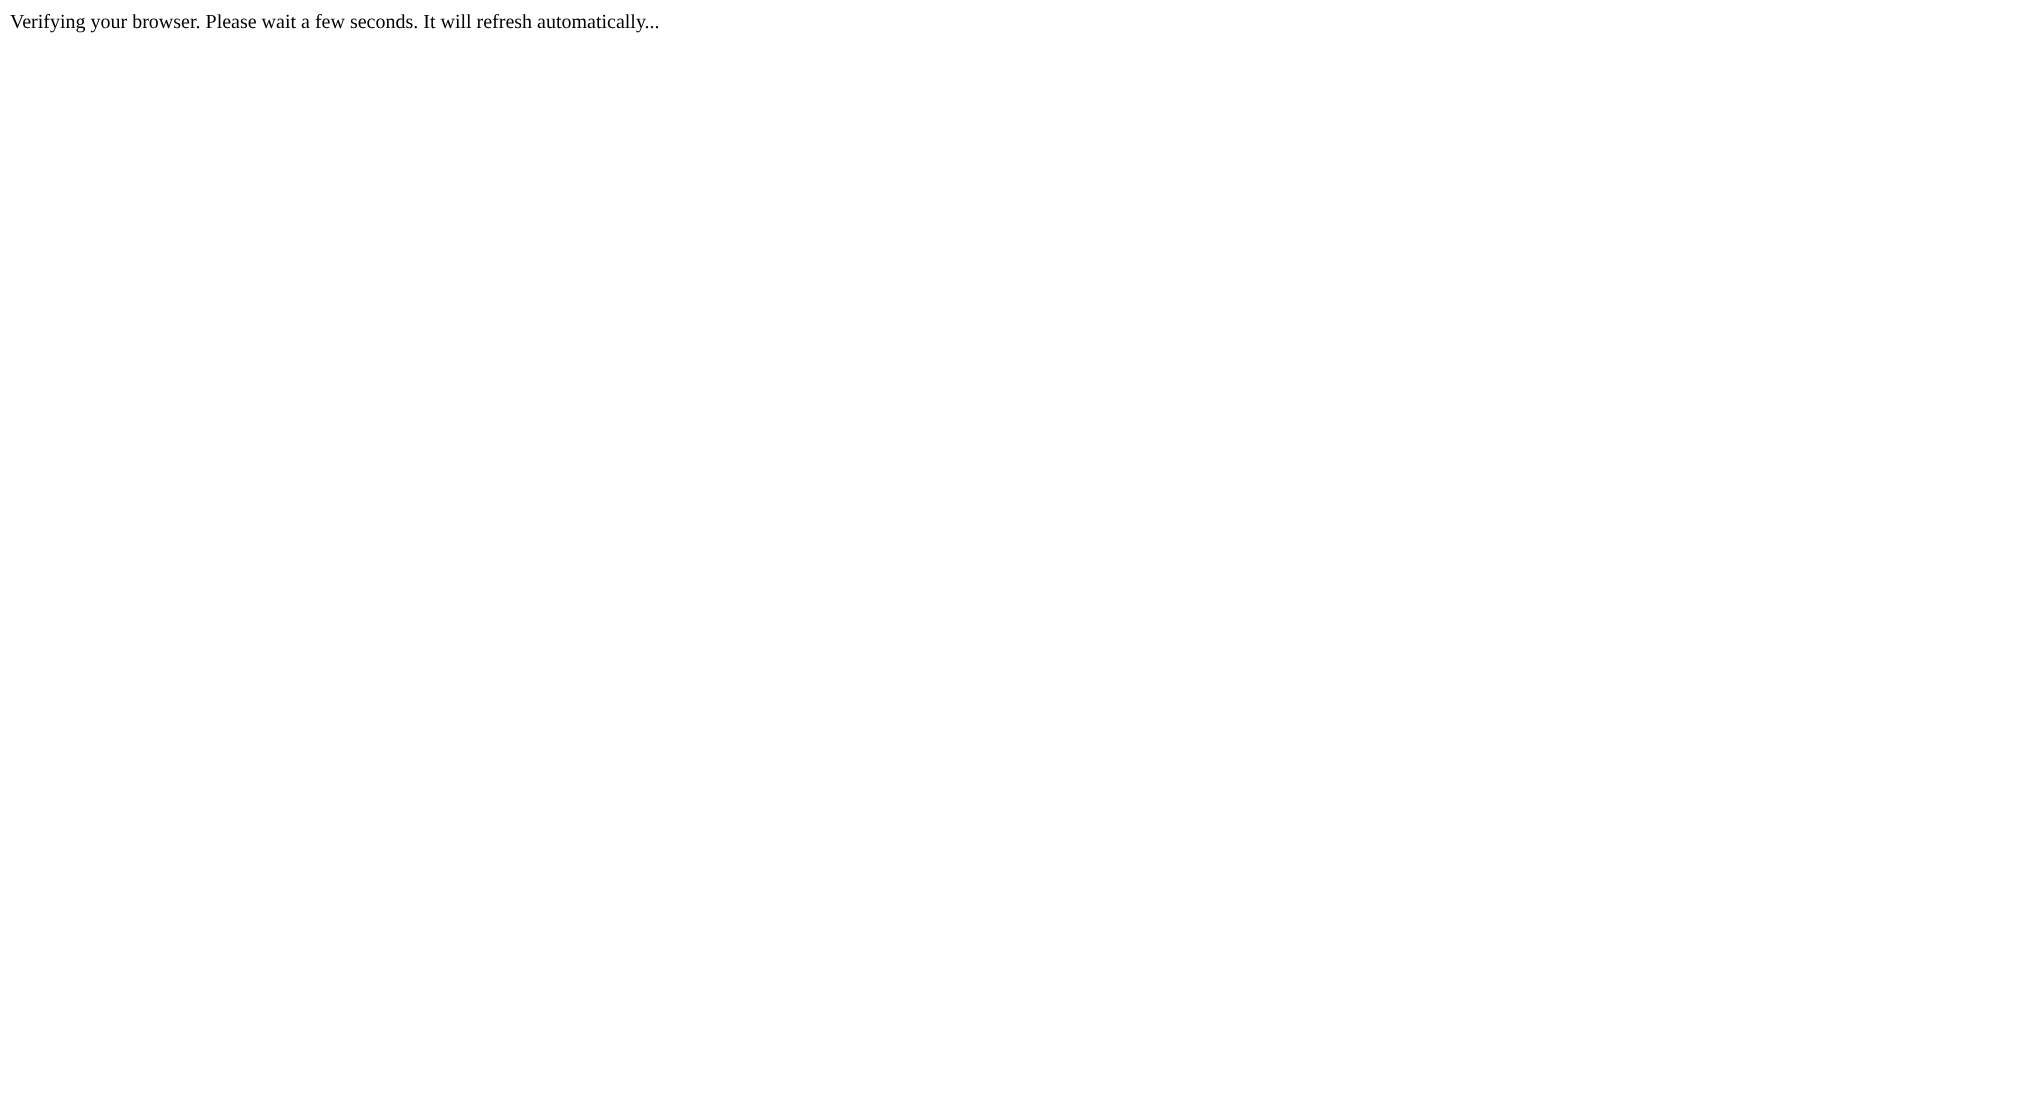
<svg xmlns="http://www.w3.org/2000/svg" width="2018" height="1105">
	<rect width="100%" height="100%" fill="#FFFFFF" />
	<text x="10" y="28" font-family="Liberation Serif" font-size="20" fill="#000000">Verifying your browser. Please wait a few seconds. It will refresh automatically...</text>
</svg>
